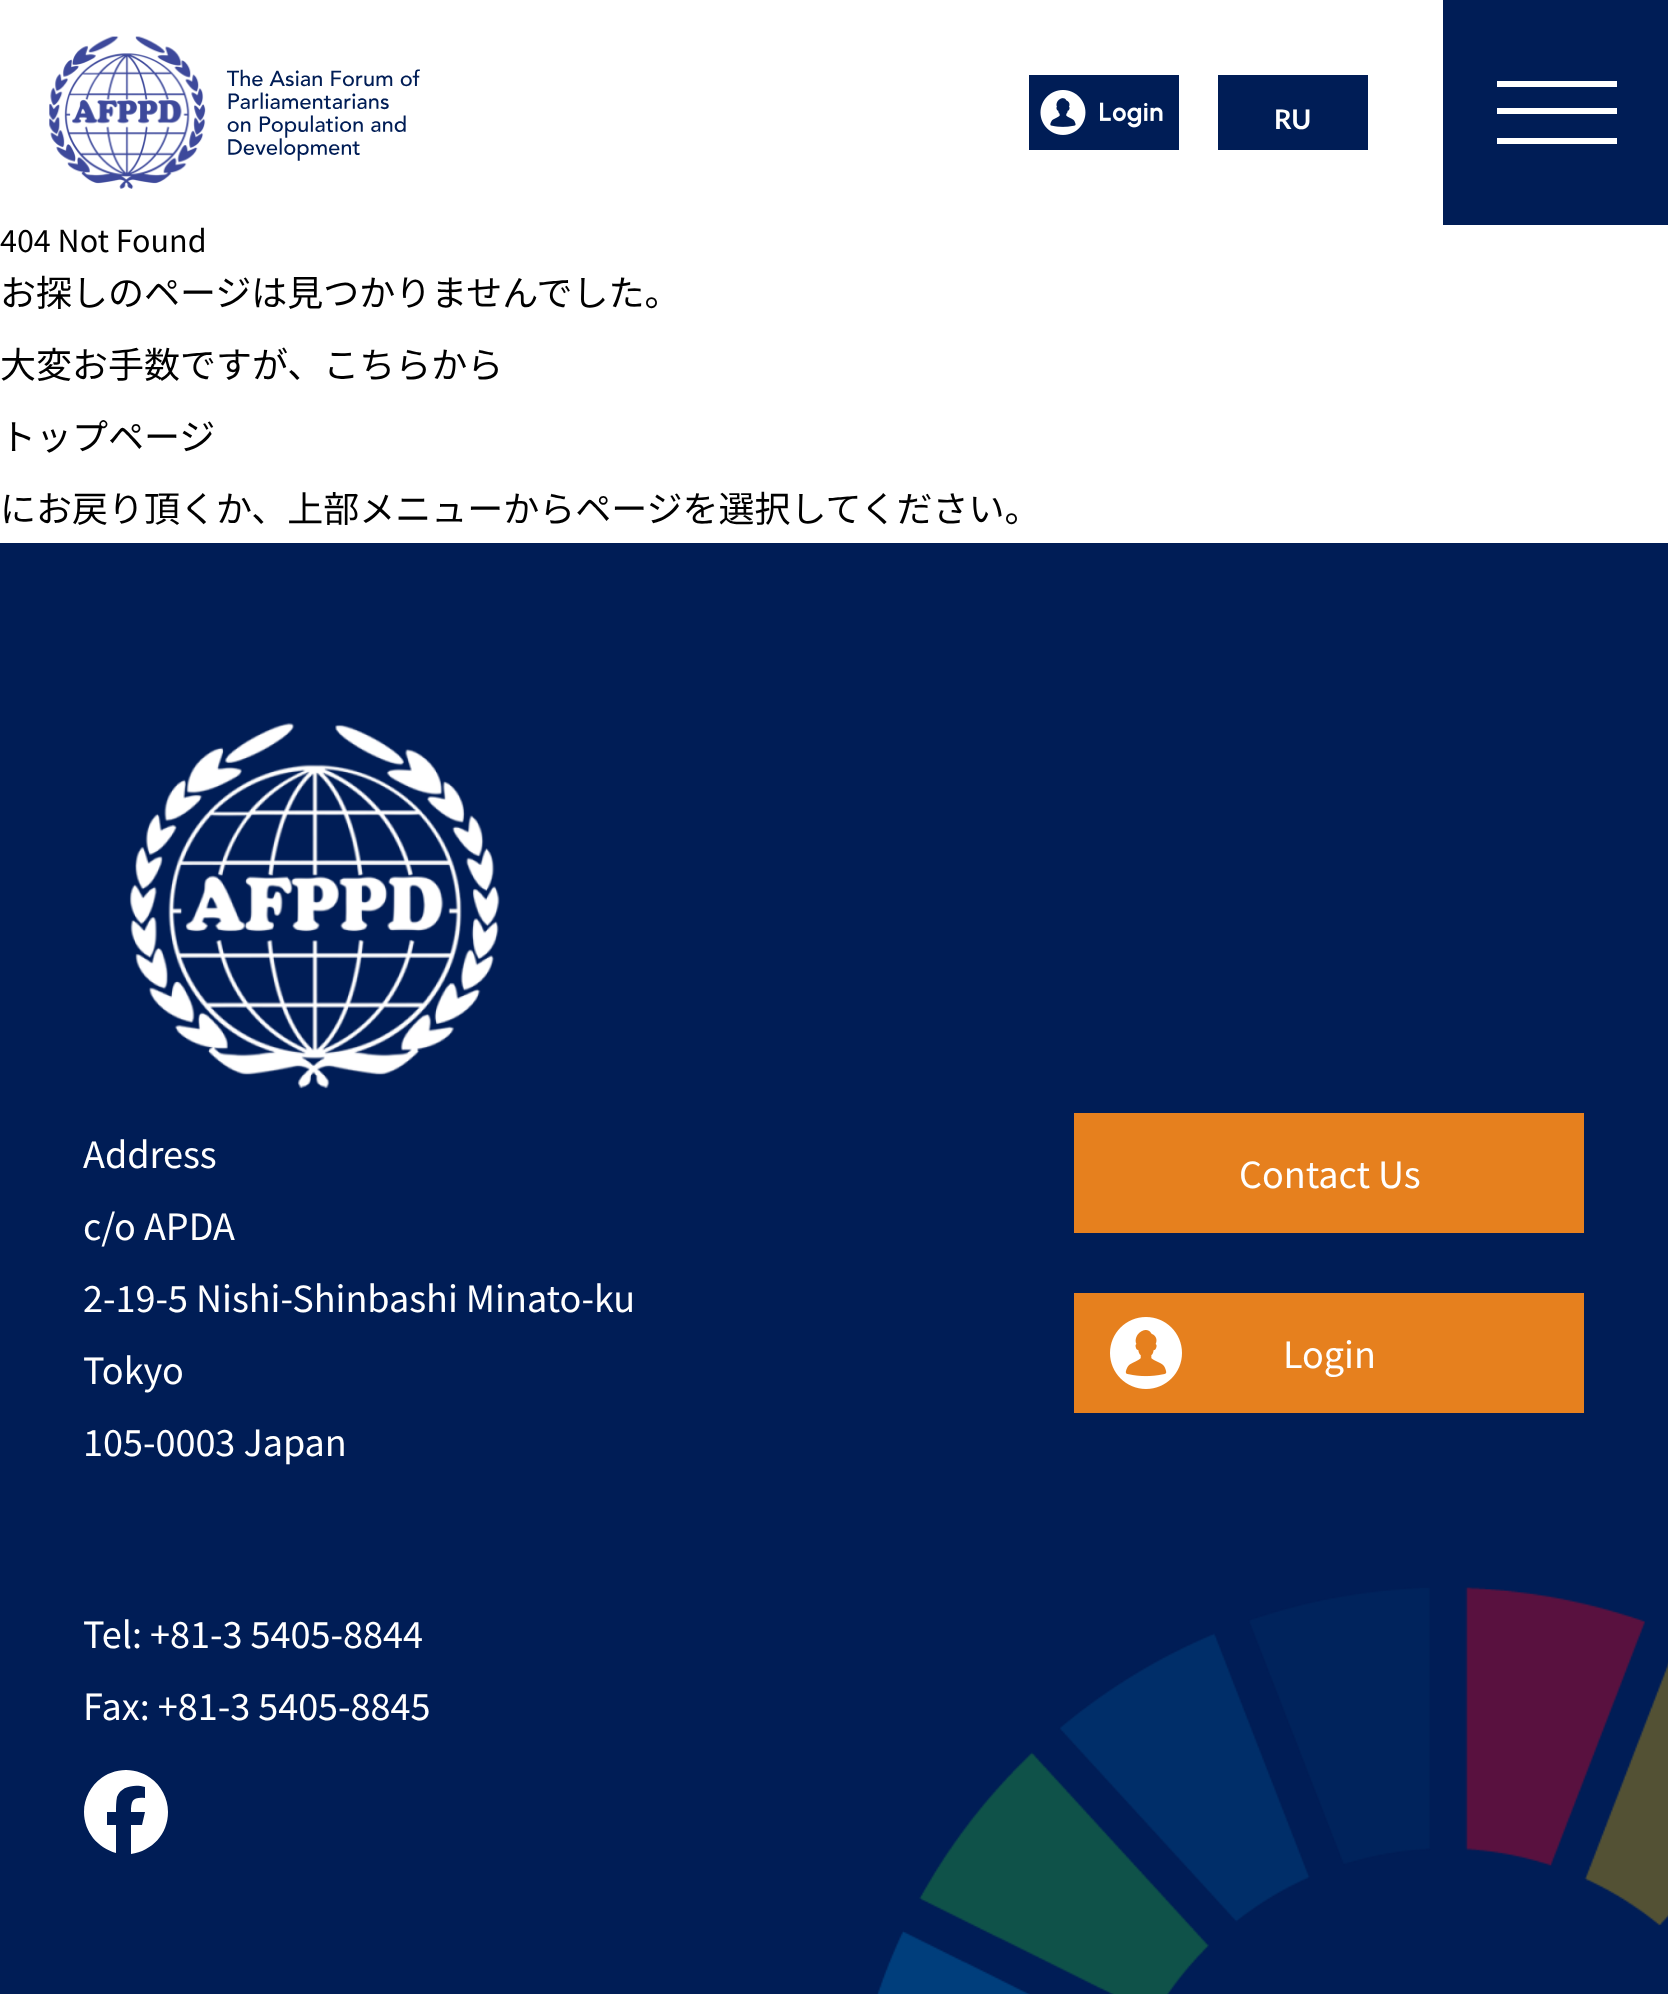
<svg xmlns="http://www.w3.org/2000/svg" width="1668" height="1994">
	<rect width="100%" height="100%" fill="#FFFFFF" />
	<image x="49" y="36" width="371" height="153" href="assets/img1.png" />
	<image x="1029" y="75" width="150" height="75" href="assets/img2.png" />
	<rect x="1218" y="75" width="150" height="75" fill="#001D56" />
	<text x="1274" y="129" font-family="Lato" font-size="27" font-weight="700" fill="#FFFFFF">RU</text>
	<rect x="1443" y="0" width="225" height="225" fill="#001D56" />
	<rect x="1497" y="81" width="120" height="6" fill="#FFFFFF" />
	<rect x="1497" y="108" width="120" height="6" fill="#FFFFFF" />
	<rect x="1497" y="138" width="120" height="6" fill="#FFFFFF" />
	<text x="0" y="252" font-family="Noto Sans JP" font-size="30.5" fill="#000000">404 Not Found</text>
	<g font-family="Noto Sans JP" font-size="36" fill="#000000">
		<text x="0" y="306">お探しのページは見つかりませんでした。</text>
		<text x="0" y="378">大変お手数ですが、こちらから</text>
		<text x="0" y="450">トップページ</text>
		<text x="0" y="522">にお戻り頂くか、上部メニューからページを選択してください。</text>
	</g>
	<rect x="0" y="543" width="1668" height="1451" fill="#001D56" />
	<image x="877" y="1587" width="791" height="407" href="assets/img3.png" />
	<image x="129" y="722" width="371" height="367" href="assets/img4.png" />
	<g font-family="Noto Sans JP" font-size="36" fill="#FFFFFF">
		<text x="83" y="1168">Address</text>
		<text x="83" y="1240">c/o APDA</text>
		<text x="83" y="1312">2-19-5 Nishi-Shinbashi Minato-ku</text>
		<text x="83" y="1384">Tokyo</text>
		<text x="83" y="1456">105-0003 Japan</text>
		<text x="83" y="1648">Tel: +81-3 5405-8844</text>
		<text x="83" y="1720">Fax: +81-3 5405-8845</text>
	</g>
	<path d="M126 1770C103 1770 84 1789 84 1812C84 1832 98 1848 116 1853V1825H107V1812H116C116 1807 116 1802 117 1797C121 1786 135 1784 145 1787V1798C133 1797 131 1800 131 1812H145L142 1825H131V1854C152 1851 168 1834 168 1812C168 1789 149 1770 126 1770Z" fill="#FFFFFF" />
	<rect x="1074" y="1113" width="510" height="120" fill="#E6801E" />
	<text x="1239" y="1188" font-family="Noto Sans JP" font-size="36" fill="#FFFFFF">Contact Us</text>
	<rect x="1074" y="1293" width="510" height="120" fill="#E6801E" />
	<image x="1110" y="1317" width="72" height="72" href="assets/img5.png" />
	<text x="1283" y="1368" font-family="Noto Sans JP" font-size="36" fill="#FFFFFF">Login</text>
</svg>
